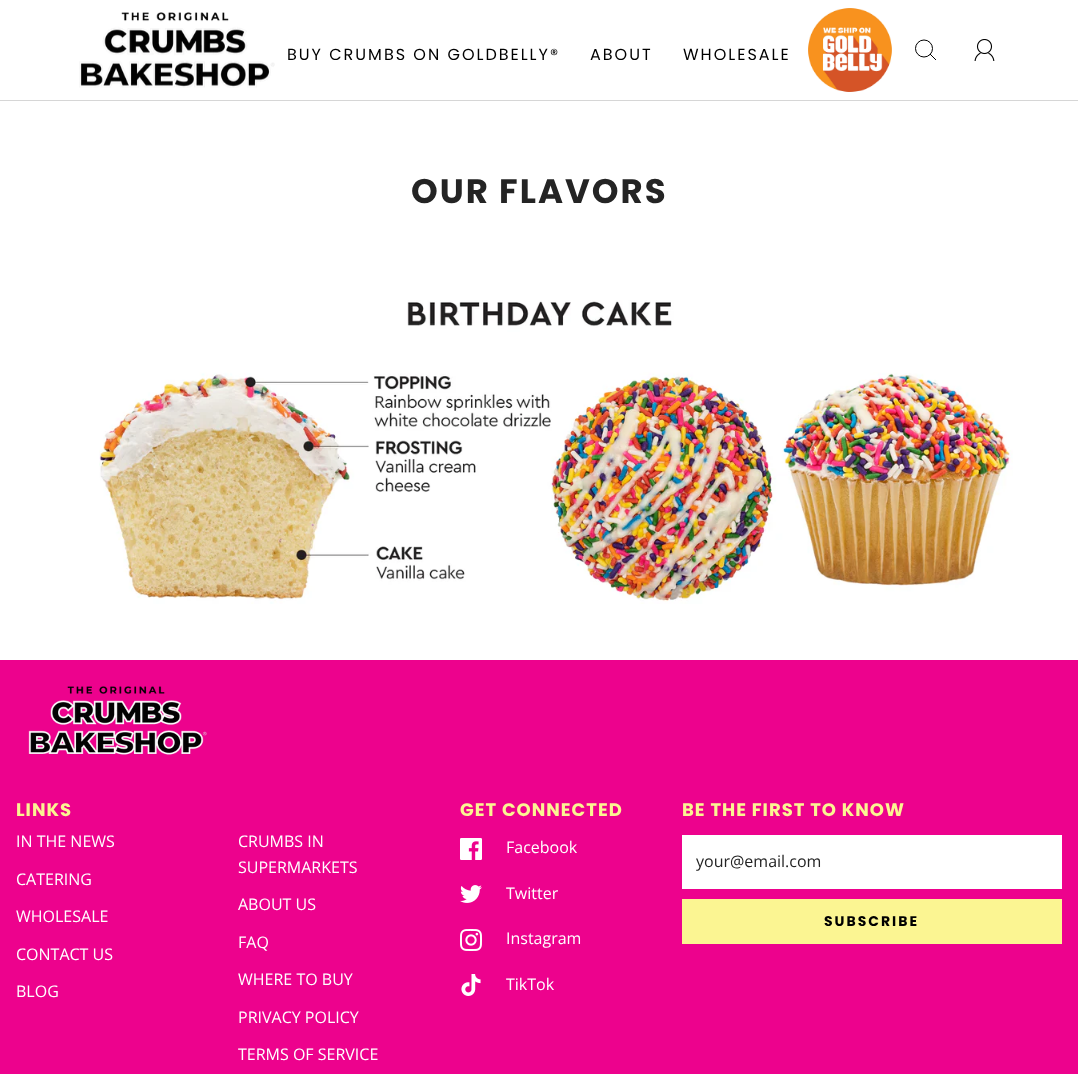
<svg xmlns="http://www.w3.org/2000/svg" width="1078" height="1074">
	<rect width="100%" height="100%" fill="#FFFFFF" />
	<rect x="0" y="100" width="1078" height="1" fill="#D6D6D6" />
	<image x="79" y="12" width="196" height="76" href="assets/img1.png" />
	<g font-family="Poppins" font-size="16" letter-spacing="2" fill="#000000">
		<text x="287" y="60">BUY CRUMBS ON GOLDBELLY®</text>
		<text x="590" y="60">ABOUT</text>
		<text x="683" y="60">WHOLESALE</text>
	</g>
	<image x="808" y="8" width="84" height="84" href="assets/img2.png" />
	<circle cx="924" cy="48.5" r="8.5" fill="none" stroke="#000000" />
	<path d="M930 54L936 60" fill="none" stroke="#000000" />
	<image x="974" y="39" width="21" height="22" href="assets/img3.png" />
	<text x="411" y="203" font-family="Poppins" font-size="34" font-weight="700" letter-spacing="2" fill="#242424">OUR FLAVORS</text>
	<image x="99" y="300" width="914" height="304" href="assets/img4.png" />
	<rect x="0" y="660" width="1078" height="414" fill="#ED028D" />
	<image x="28" y="686" width="179" height="69" href="assets/img5.png" />
	<text x="16" y="816" font-family="Poppins" font-size="18" font-weight="700" letter-spacing="1" fill="#FBF592">LINKS</text>
	<g font-family="Open Sans" font-size="16" fill="#FFFFFF">
		<text x="16" y="847">IN THE NEWS</text>
		<text x="16" y="885">CATERING</text>
		<text x="16" y="922">WHOLESALE</text>
		<text x="16" y="960">CONTACT US</text>
		<text x="16" y="997">BLOG</text>
		<text x="238" y="847">CRUMBS IN</text>
		<text x="238" y="873">SUPERMARKETS</text>
		<text x="238" y="910">ABOUT US</text>
		<text x="238" y="948">FAQ</text>
		<text x="238" y="985">WHERE TO BUY</text>
		<text x="238" y="1023">PRIVACY POLICY</text>
		<text x="238" y="1060">TERMS OF SERVICE</text>
	</g>
	<text x="460" y="816" font-family="Poppins" font-size="18" font-weight="700" letter-spacing="1" fill="#FBF592">GET CONNECTED</text>
	<image x="460" y="838" width="22" height="22" href="assets/img6.png" />
	<text x="506" y="853" font-family="Open Sans" font-size="16" fill="#FFFFFF">Facebook</text>
	<image x="460" y="885" width="22" height="18" href="assets/img7.png" />
	<text x="506" y="899" font-family="Open Sans" font-size="16" fill="#FFFFFF">Twitter</text>
	<image x="460" y="929" width="22" height="22" href="assets/img8.png" />
	<text x="506" y="944" font-family="Open Sans" font-size="16" fill="#FFFFFF">Instagram</text>
	<image x="461" y="974" width="20" height="22" href="assets/img9.png" />
	<text x="506" y="990" font-family="Open Sans" font-size="16" fill="#FFFFFF">TikTok</text>
	<text x="682" y="816" font-family="Poppins" font-size="18" font-weight="700" letter-spacing="1" fill="#FBF592">BE THE FIRST TO KNOW</text>
	<rect x="682" y="835" width="380" height="54" fill="#FFFFFF" />
	<text x="696" y="867" font-family="Open Sans" font-size="16" fill="#242424">your@email.com</text>
	<rect x="682" y="899" width="380" height="45" fill="#FBF592" />
	<text x="824" y="926" font-family="Poppins" font-size="14" font-weight="700" letter-spacing="2" fill="#000000">SUBSCRIBE</text>
</svg>
